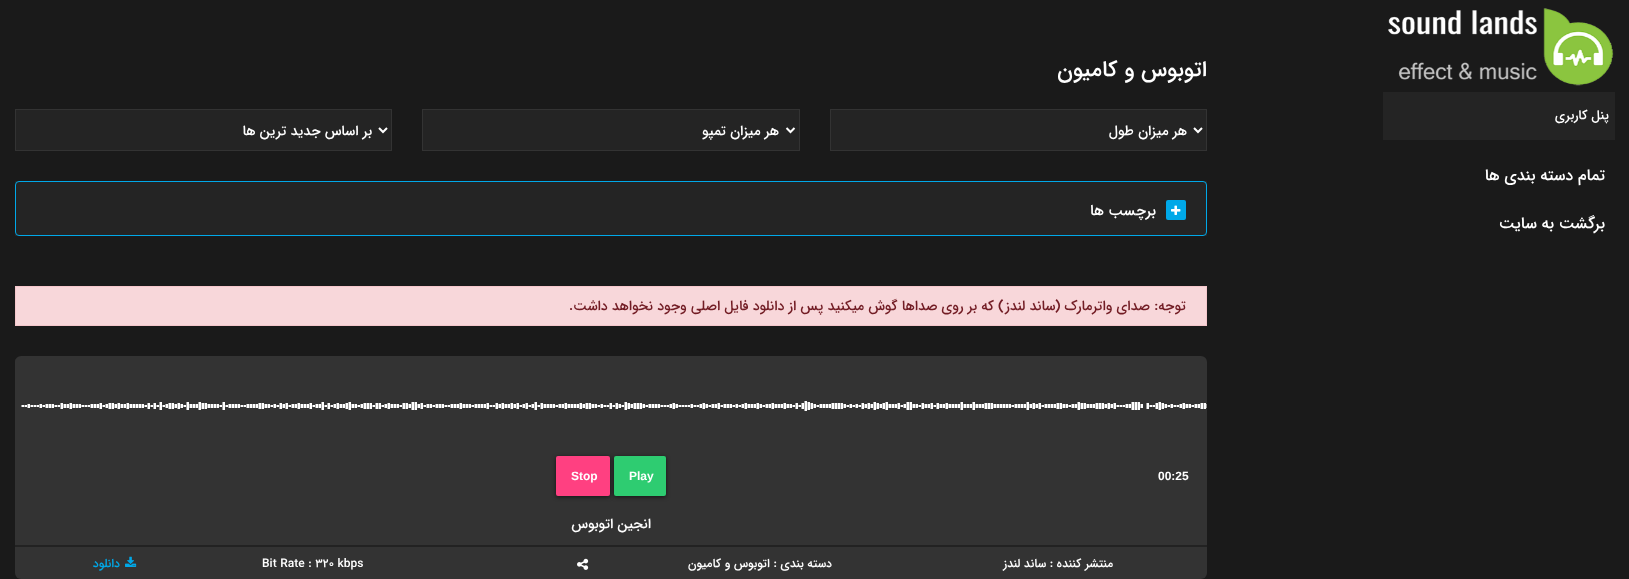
<svg xmlns="http://www.w3.org/2000/svg" width="1629" height="579">
	<defs>
		<clipPath id="clip1"><rect x="15" y="356" width="1192" height="223" rx="6" /></clipPath>
	</defs>
	<rect width="100%" height="100%" fill="#1A1A1A" />
	<image x="1388" y="8" width="226" height="78" href="assets/img1.png" />
	<rect x="1383" y="92" width="232" height="48" fill="#242424" />
	<text x="1609" y="119" font-family="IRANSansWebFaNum" font-size="13" font-weight="500" direction="rtl" fill="#FFFFFF">پنل کاربری</text>
	<g font-family="IRANSansWebFaNum" font-size="16" font-weight="500" direction="rtl" fill="#FFFFFF">
		<text x="1605" y="180">تمام دسته بندی ها</text>
		<text x="1605" y="228">برگشت به سایت</text>
	</g>
	<text x="1207" y="76" font-family="IRANSansWebFaNum" font-size="22" font-weight="500" direction="rtl" fill="#FFFFFF">اتوبوس و کامیون</text>
	<rect x="830.5" y="109.5" width="376" height="41" fill="#242424" stroke="#333333" />
	<path d="M1194 128L1198 132L1202 128" fill="none" stroke="#FFFFFF" stroke-width="2" />
	<text x="1187" y="135" font-family="IRANSansWebFaNum" font-size="14" font-weight="500" direction="rtl" fill="#FFFFFF">هر میزان طول</text>
	<rect x="422.5" y="109.5" width="377" height="41" fill="#242424" stroke="#333333" />
	<path d="M786.5 128L790.5 132L794.5 128" fill="none" stroke="#FFFFFF" stroke-width="2" />
	<text x="779" y="135" font-family="IRANSansWebFaNum" font-size="14" font-weight="500" direction="rtl" fill="#FFFFFF">هر میزان تمپو</text>
	<rect x="15.5" y="109.5" width="376" height="41" fill="#242424" stroke="#333333" />
	<path d="M379 128L383 132L387 128" fill="none" stroke="#FFFFFF" stroke-width="2" />
	<text x="372" y="135" font-family="IRANSansWebFaNum" font-size="14" font-weight="500" direction="rtl" fill="#FFFFFF">بر اساس جدید ترین ها</text>
	<rect x="15" y="181" width="1192" height="55" fill="#242424" />
	<rect x="15.5" y="181.5" width="1191" height="54" rx="3.5" fill="none" stroke="#00A8E8" />
	<rect x="1166" y="200" width="20" height="20" rx="2" fill="#00A8E8" />
	<image x="1171" y="205" width="10" height="10" href="assets/img2.png" />
	<text x="1156" y="215" font-family="IRANSansWebFaNum" font-size="15" font-weight="500" direction="rtl" fill="#FFFFFF">برچسب ها</text>
	<rect x="15.5" y="286.5" width="1191" height="39" fill="#F8D7DA" stroke="#F5C6CB" />
	<text x="1186" y="310" font-family="IRANSansWebFaNum" font-size="14" font-weight="500" direction="rtl" fill="#721C24">توجه: صدای واترمارک (ساند لندز) که بر روی صداها گوش میکنید پس از دانلود فایل اصلی وجود نخواهد داشت.</text>
	<rect x="15" y="356" width="1192" height="223" rx="6" fill="#333333" />
	<image x="21" y="401" width="1186" height="10" href="assets/img3.png" />
	<g clip-path="url(#clip1)">
		<rect x="15" y="356" width="1" height="100" fill="#333333" />
	</g>
	<text x="1158" y="480" font-family="Liberation Sans" font-size="12" font-weight="700" fill="#FFFFFF">00:25</text>
	<rect x="614" y="457" width="52" height="40" rx="2" fill="#000000" fill-opacity="0.6" filter="blur(2px)" />
	<rect x="614" y="456" width="52" height="40" rx="2" fill="#2ECC71" />
	<text x="629" y="480" font-family="Liberation Sans" font-size="12" font-weight="700" fill="#FFFFFF">Play</text>
	<rect x="556" y="457" width="54" height="40" rx="2" fill="#000000" fill-opacity="0.6" filter="blur(2px)" />
	<rect x="556" y="456" width="54" height="40" rx="2" fill="#FF4081" />
	<text x="571" y="480" font-family="Liberation Sans" font-size="12" font-weight="700" fill="#FFFFFF">Stop</text>
	<text x="651" y="528" font-family="IRANSansWebFaNum" font-size="14" font-weight="500" direction="rtl" fill="#FFFFFF">انجین اتوبوس</text>
	<rect x="15" y="545" width="1192" height="2" fill="#222222" />
	<g font-family="IRANSansWebFaNum" font-size="12" font-weight="500" direction="rtl" fill="#FFFFFF">
		<text x="1113" y="567">منتشر کننده : ساند لندز</text>
		<text x="832" y="567">دسته بندی : اتوبوس و کامیون</text>
	</g>
	<image x="577" y="558" width="12" height="12" href="assets/img4.png" />
	<text x="262" y="567" font-family="IRANSansWebFaNum" font-size="12" font-weight="500" fill="#FFFFFF">Bit Rate : 320 kbps</text>
	<image x="125" y="556" width="12" height="11" href="assets/img5.png" />
	<text x="120" y="567" font-family="IRANSansWebFaNum" font-size="12" font-weight="500" direction="rtl" fill="#00A8E8">دانلود</text>
</svg>
